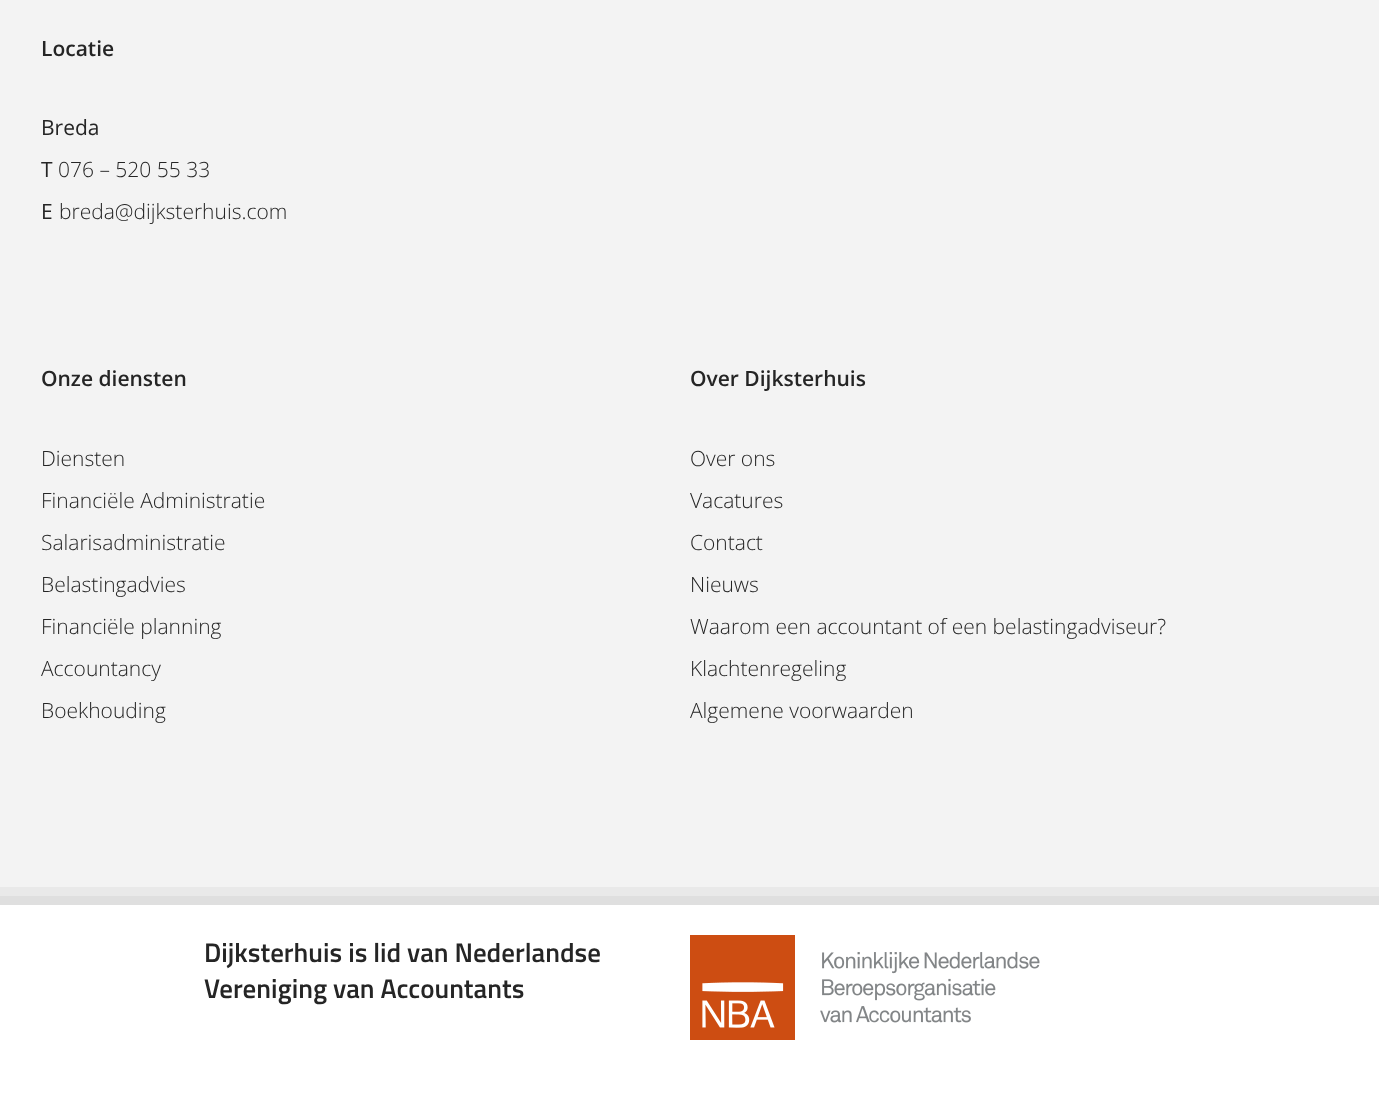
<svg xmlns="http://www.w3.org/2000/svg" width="1379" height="1103">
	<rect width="100%" height="100%" fill="#FFFFFF" />
	<rect x="0" y="0" width="1379" height="887" fill="#F3F3F3" />
	<rect x="0" y="887" width="1379" height="9" fill="#E9E9E9" />
	<text x="41" y="56" font-family="Open Sans" font-size="21" font-weight="600" fill="#252525">Locatie</text>
	<g font-family="Open Sans" font-size="21" fill="#252525">
		<text x="41" y="135">Breda</text>
		<text x="41" y="177">T</text>
	</g>
	<text x="58" y="177" font-family="Open Sans" font-size="21" font-weight="300" fill="#252525">076 – 520 55 33</text>
	<text x="41" y="219" font-family="Open Sans" font-size="21" fill="#252525">E</text>
	<text x="59" y="219" font-family="Open Sans" font-size="21" font-weight="300" fill="#252525">breda@dijksterhuis.com</text>
	<text x="41" y="386" font-family="Open Sans" font-size="21" font-weight="600" fill="#252525">Onze diensten</text>
	<g font-family="Open Sans" font-size="21" font-weight="300" fill="#252525">
		<text x="41" y="466">Diensten</text>
		<text x="41" y="508">Financiële Administratie</text>
		<text x="41" y="550">Salarisadministratie</text>
		<text x="41" y="592">Belastingadvies</text>
		<text x="41" y="634">Financiële planning</text>
		<text x="41" y="676">Accountancy</text>
		<text x="41" y="718">Boekhouding</text>
	</g>
	<text x="690" y="386" font-family="Open Sans" font-size="21" font-weight="600" fill="#252525">Over Dijksterhuis</text>
	<g font-family="Open Sans" font-size="21" font-weight="300" fill="#252525">
		<text x="690" y="466">Over ons</text>
		<text x="690" y="508">Vacatures</text>
		<text x="690" y="550">Contact</text>
		<text x="690" y="592">Nieuws</text>
		<text x="690" y="634">Waarom een accountant of een belastingadviseur?</text>
		<text x="690" y="676">Klachtenregeling</text>
		<text x="690" y="718">Algemene voorwaarden</text>
	</g>
	<rect x="0" y="896" width="1379" height="9" fill="#DFDFDF" />
	<g font-family="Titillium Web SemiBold" font-size="27" font-weight="600" fill="#252525">
		<text x="204" y="962">Dijksterhuis is lid van Nederlandse</text>
		<text x="204" y="998">Vereniging van Accountants</text>
	</g>
	<image x="690" y="935" width="350" height="105" href="assets/img1.png" />
</svg>
